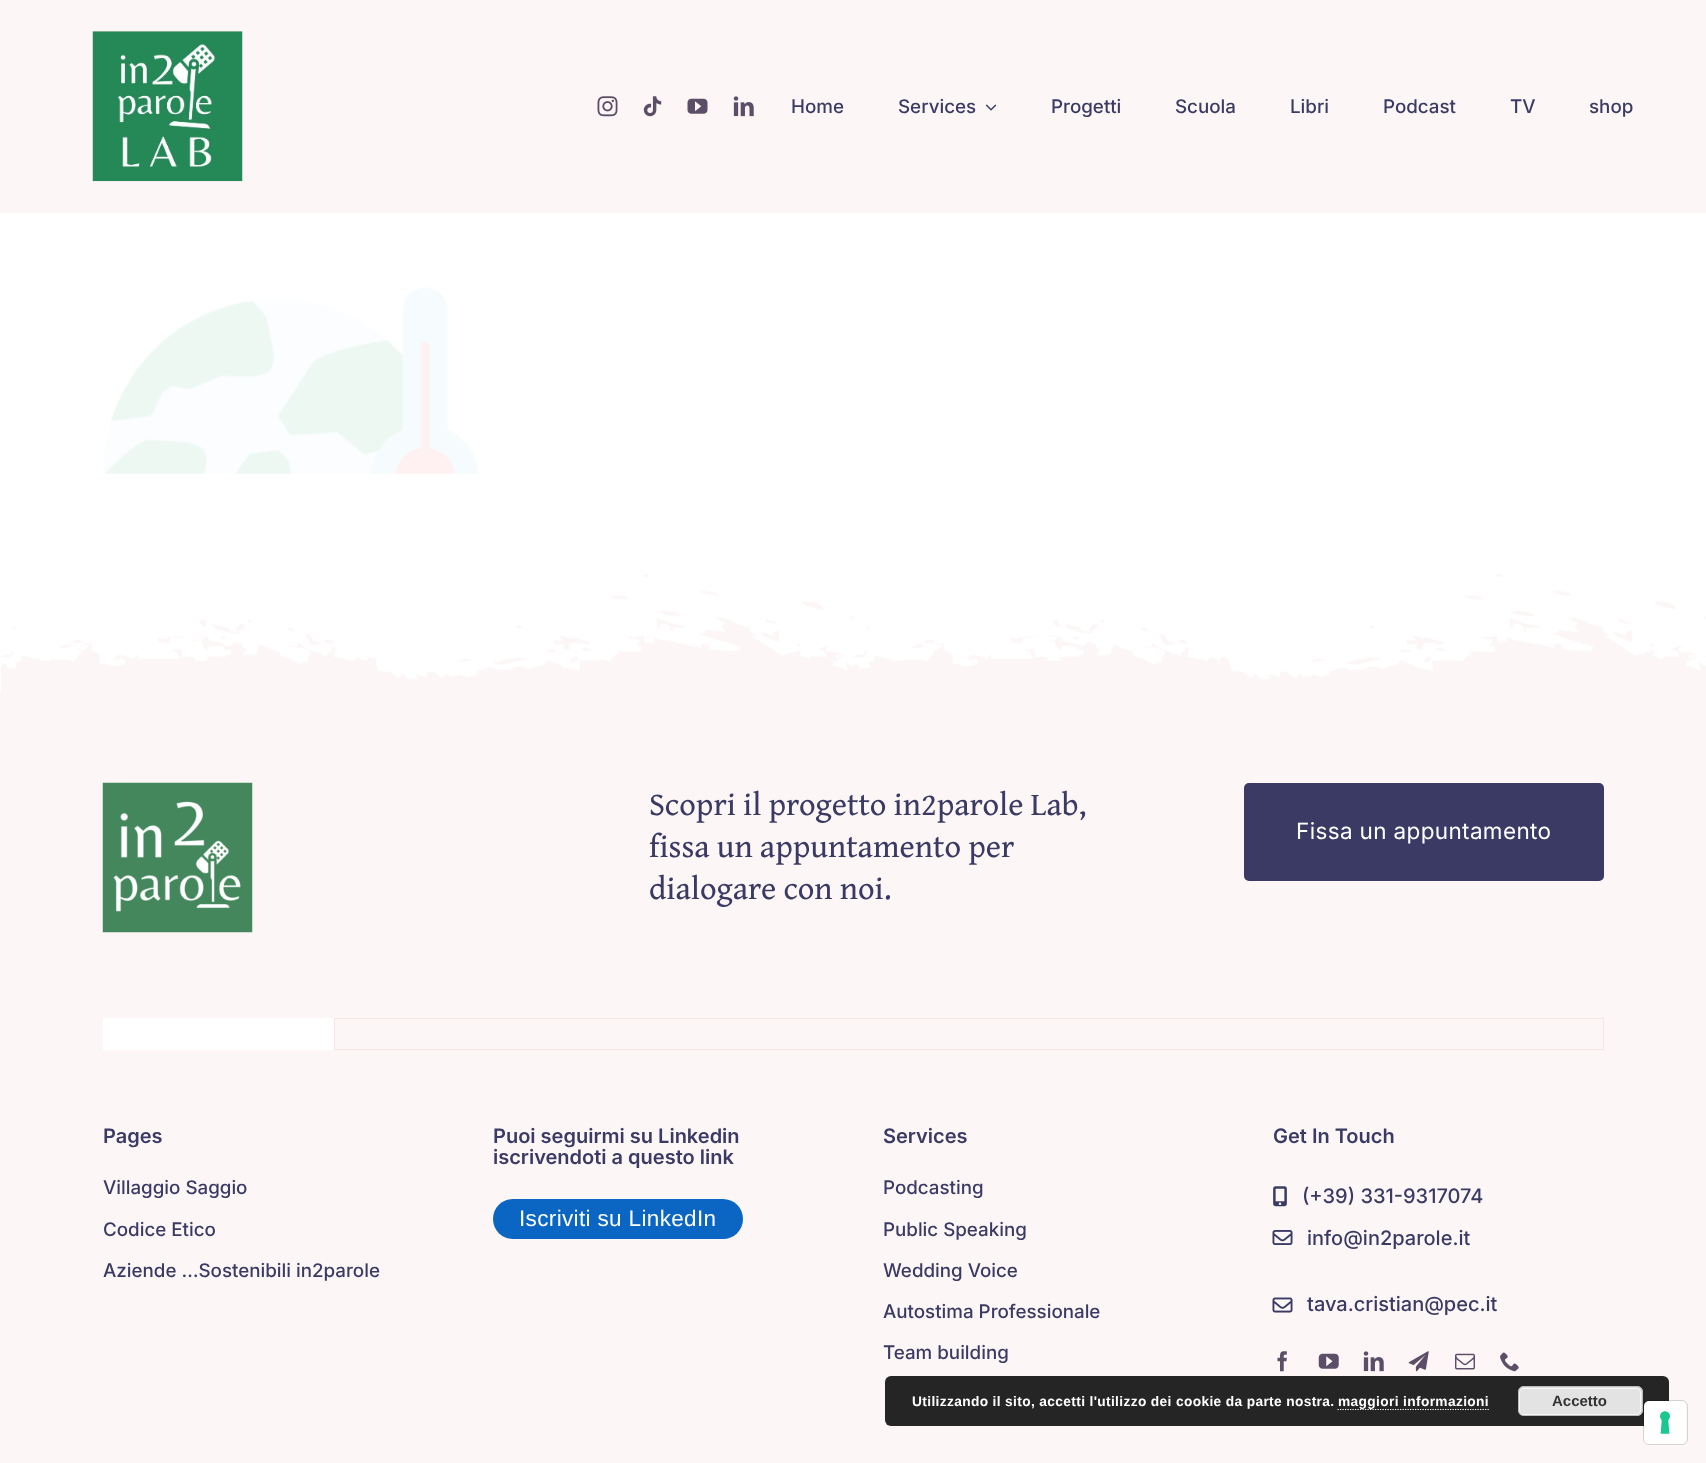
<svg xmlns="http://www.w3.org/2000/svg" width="1706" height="1463">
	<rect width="100%" height="100%" fill="#FFFFFF" />
	<rect x="0" y="0" width="1706" height="213" fill="#FCF7F6" />
	<image x="92" y="31" width="151" height="151" href="assets/img1.png" />
	<image x="597" y="96" width="21" height="21" href="assets/img2.png" />
	<image x="643" y="96" width="19" height="21" href="assets/img3.png" />
	<image x="687" y="98" width="21" height="16" href="assets/img4.png" />
	<image x="733" y="96" width="21" height="21" href="assets/img5.png" />
	<g font-family="Inter" font-size="18.75" font-weight="500" fill="#3B3A64">
		<text x="791" y="113">Home</text>
		<text x="898" y="113">Services</text>
	</g>
	<image x="985" y="104" width="12" height="7" href="assets/img6.png" />
	<g font-family="Inter" font-size="18.75" font-weight="500" fill="#3B3A64">
		<text x="1051" y="113">Progetti</text>
		<text x="1175" y="113">Scuola</text>
		<text x="1290" y="113">Libri</text>
		<text x="1383" y="113">Podcast</text>
		<text x="1510" y="113">TV</text>
		<text x="1589" y="113">shop</text>
	</g>
	<image x="104" y="287" width="375" height="187" href="assets/img7.png" />
	<image x="1" y="574" width="1705" height="119" href="assets/img8.png" />
	<rect x="0" y="693" width="1706" height="770" fill="#FCF7F6" />
	<image x="102" y="782" width="151" height="151" href="assets/img9.png" />
	<g font-family="Gentium Book Plus" font-size="32.5" fill="#3B3A64">
		<text x="649" y="815">Scopri il progetto in2parole Lab,</text>
		<text x="649" y="857">fissa un appuntamento per</text>
		<text x="649" y="899">dialogare con noi.</text>
	</g>
	<rect x="1244" y="783" width="360" height="98" rx="5" fill="#3B3A64" />
	<text x="1296" y="839" font-family="Inter" font-size="22.5" letter-spacing="0.35" fill="#FFFFFF">Fissa un appuntamento</text>
	<rect x="103" y="1018" width="231" height="32" fill="#FFFFFF" />
	<rect x="334.5" y="1018.5" width="1269" height="31" fill="none" stroke="#F6E7E4" />
	<text x="103" y="1143" font-family="Inter" font-size="20" font-weight="600" fill="#3B3A64">Pages</text>
	<g font-family="Inter" font-size="18.75" font-weight="500" fill="#3B3A64">
		<text x="103" y="1194">Villaggio Saggio</text>
		<text x="103" y="1236">Codice Etico</text>
		<text x="103" y="1277">Aziende …Sostenibili in2parole</text>
	</g>
	<g font-family="Inter" font-size="20" font-weight="600" fill="#3B3A64">
		<text x="493" y="1143">Puoi seguirmi su Linkedin</text>
		<text x="493" y="1164">iscrivendoti a questo link</text>
	</g>
	<rect x="493" y="1199" width="250" height="40" rx="20" fill="#0A66C2" />
	<text x="519" y="1226" font-family="Liberation Sans" font-size="22.5" letter-spacing="0.35" fill="#FFFFFF">Iscriviti su LinkedIn</text>
	<text x="883" y="1143" font-family="Inter" font-size="20" font-weight="600" fill="#3B3A64">Services</text>
	<g font-family="Inter" font-size="18.75" font-weight="500" fill="#3B3A64">
		<text x="883" y="1194">Podcasting</text>
		<text x="883" y="1236">Public Speaking</text>
		<text x="883" y="1277">Wedding Voice</text>
		<text x="883" y="1318">Autostima Professionale</text>
		<text x="883" y="1359">Team building</text>
	</g>
	<text x="1273" y="1143" font-family="Inter" font-size="20" font-weight="600" fill="#3B3A64">Get In Touch</text>
	<image x="1273" y="1186" width="14" height="21" href="assets/img10.png" />
	<text x="1302" y="1203" font-family="Inter" font-size="20" font-weight="500" fill="#3B3A64">(+39) 331-9317074</text>
	<image x="1272" y="1230" width="21" height="15" href="assets/img11.png" />
	<text x="1307" y="1245" font-family="Inter" font-size="20" font-weight="500" fill="#3B3A64">info@in2parole.it</text>
	<image x="1272" y="1297" width="21" height="16" href="assets/img12.png" />
	<text x="1307" y="1311" font-family="Inter" font-size="20" font-weight="500" fill="#3B3A64">tava.cristian@pec.it</text>
	<image x="1277" y="1351" width="10" height="21" href="assets/img13.png" />
	<image x="1318" y="1353" width="21" height="16" href="assets/img14.png" />
	<image x="1363" y="1351" width="21" height="21" href="assets/img5.png" />
	<image x="1408" y="1351" width="21" height="21" href="assets/img15.png" />
	<image x="1455" y="1353" width="20" height="17" href="assets/img16.png" />
	<image x="1500" y="1352" width="19" height="20" href="assets/img17.png" />
	<rect x="885" y="1376" width="784" height="50" rx="6" fill="#262525" />
	<text x="912" y="1406" font-family="Liberation Sans" font-size="13.75" font-weight="700" letter-spacing="0.35" fill="#FFFFFF">Utilizzando il sito, accetti l'utilizzo dei cookie da parte nostra.</text>
	<path d="M1337.5 1409.5H1489" fill="none" stroke="#FFFFFF" stroke-width="1.2" stroke-dasharray="1.25 1.25" />
	<text x="1338" y="1406" font-family="Liberation Sans" font-size="13.75" font-weight="700" letter-spacing="0.35" fill="#FFFFFF">maggiori informazioni</text>
	<rect x="1518" y="1386" width="125" height="30" rx="6" fill="#E3E3E3" />
	<rect x="1519.5" y="1388.5" width="121" height="26" rx="4.5" fill="none" stroke="#F6F6F6" />
	<rect x="1518.5" y="1386.5" width="124" height="29" rx="5.5" fill="none" stroke="#BBBBBB" />
	<text x="1552" y="1406" font-family="Liberation Sans" font-size="15" font-weight="700" fill="#333333">Accetto</text>
	<rect x="1643.5" y="1400.5" width="44" height="44" rx="5.5" fill="none" stroke="#000000" stroke-opacity="0.15" />
	<rect x="1644" y="1401" width="42" height="43" rx="5" fill="#FFFFFF" />
	<image x="1660" y="1411" width="10" height="23" href="assets/img18.png" />
</svg>
